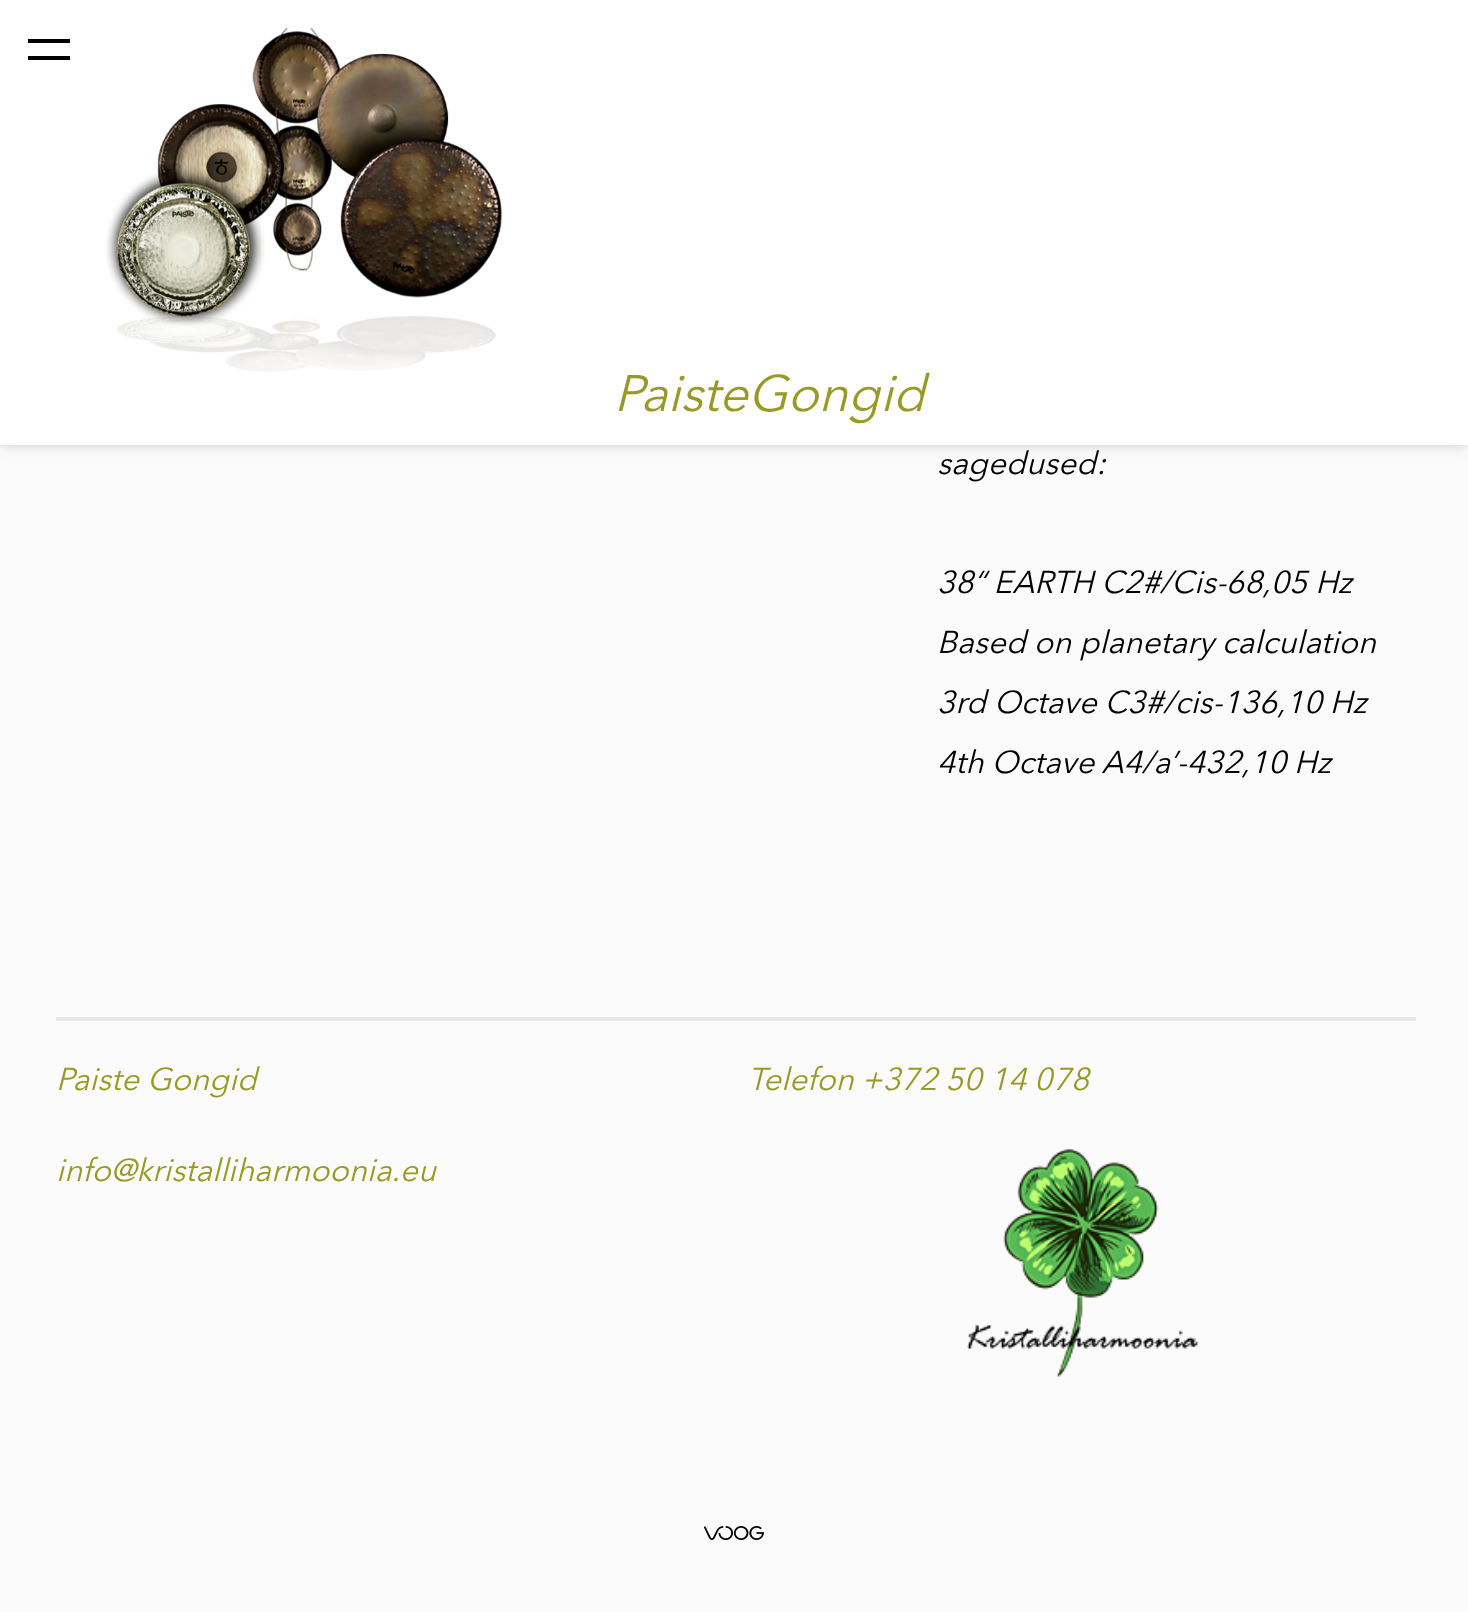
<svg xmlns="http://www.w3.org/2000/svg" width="1468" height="1612">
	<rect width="100%" height="100%" fill="#FBFBFB" />
	<rect x="0" y="0" width="1468" height="445" fill="#000000" fill-opacity="0.1" filter="blur(4.5px)" />
	<rect x="0" y="0" width="1468" height="445" fill="#000000" fill-opacity="0.1" filter="blur(9px)" />
	<rect x="0" y="0" width="1468" height="445" fill="#FFFFFF" />
	<rect x="28" y="39" width="42" height="4" fill="#000000" />
	<rect x="28" y="56" width="42" height="4" fill="#000000" />
	<image x="106" y="28" width="396" height="344" href="assets/img1.png" />
	<text x="614" y="411" font-family="Avenir Next" font-size="50.75" font-style="italic" fill="#999926">PaisteGongid</text>
	<g font-family="Avenir Next" font-size="31.5" font-style="italic" fill="#000000">
		<text x="937" y="474">sagedused:</text>
		<text x="937" y="593">38“ EARTH C2#/Cis-68,05 Hz</text>
		<text x="937" y="653">Based on planetary calculation</text>
		<text x="937" y="713">3rd Octave C3#/cis-136,10 Hz</text>
		<text x="937" y="773">4th Octave A4/a’-432,10 Hz</text>
	</g>
	<rect x="56" y="1017" width="1360" height="4" fill="#E5E6E6" />
	<g font-family="Avenir Next" font-size="31.5" font-style="italic" fill="#999926">
		<text x="56" y="1090">Paiste Gongid</text>
		<text x="748" y="1090">Telefon +372 50 14 078</text>
		<text x="56" y="1181">info@kristalliharmoonia.eu</text>
	</g>
	<image x="967" y="1149" width="232" height="228" href="assets/img2.png" />
	<image x="704" y="1526" width="60" height="14" href="assets/img3.png" />
</svg>
